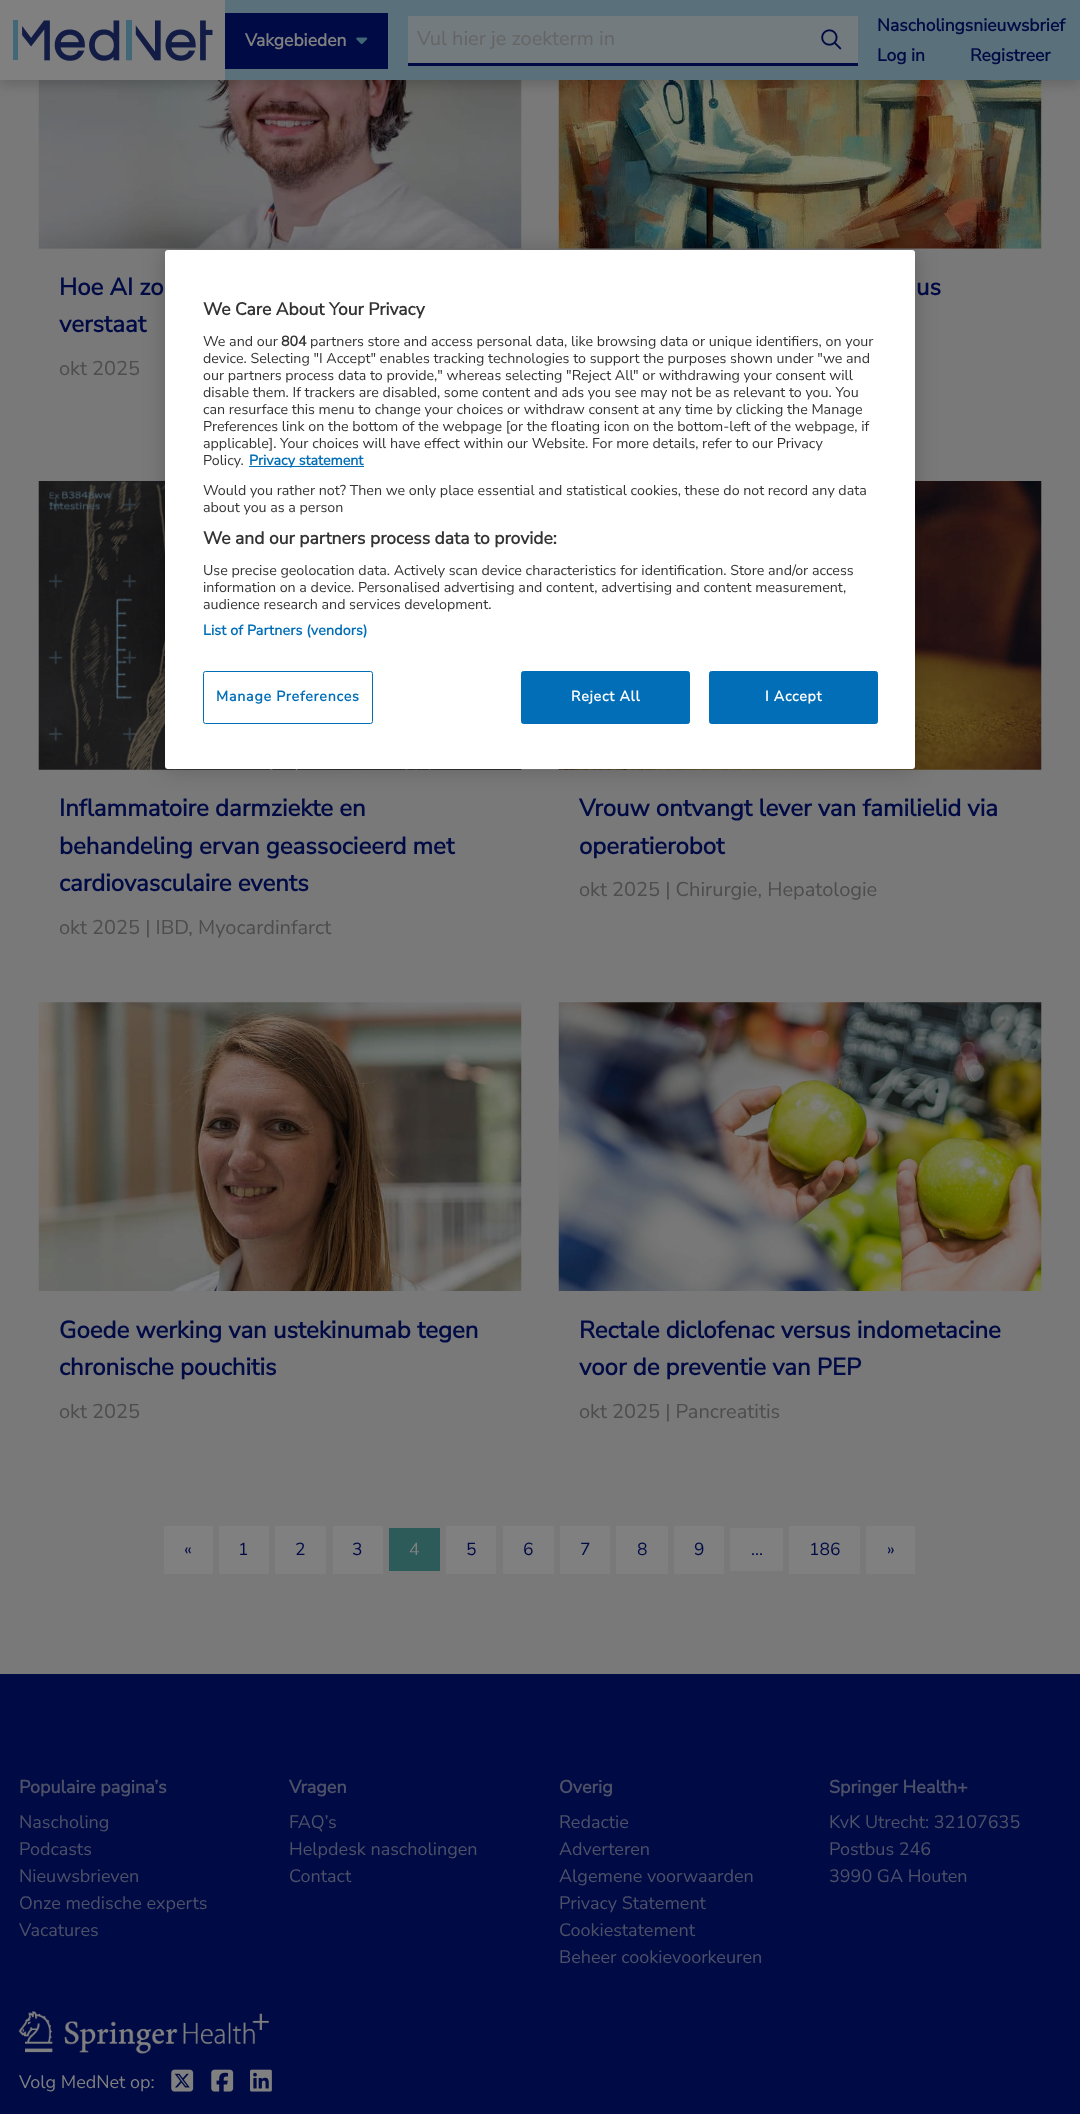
<svg xmlns="http://www.w3.org/2000/svg" width="1080" height="2114">
	<rect width="100%" height="100%" fill="#797979" />
	<rect x="39" y="248" width="482" height="1" fill="#747474" />
	<image x="38" y="80" width="484" height="169" href="assets/img4.png" />
	<rect x="559" y="248" width="482" height="1" fill="#747474" />
	<image x="558" y="80" width="484" height="169" href="assets/img5.png" />
	<rect x="0" y="5" width="1080" height="80" fill="#000000" fill-opacity="0.15" filter="blur(6px)" />
	<rect x="225" y="0" width="855" height="80" fill="#5A717B" />
	<rect x="0" y="0" width="225" height="80" fill="#808080" />
	<image x="13" y="20" width="200" height="41" href="assets/img1.png" />
	<rect x="225" y="13" width="163" height="56" fill="#000B45" />
	<text x="245" y="46" font-family="Nunito Sans" font-size="17.5" font-weight="700" fill="#808080">Vakgebieden</text>
	<image x="356" y="37" width="12" height="7" href="assets/img2.png" />
	<rect x="408" y="16" width="450" height="47" fill="#737B7E" />
	<rect x="408" y="63" width="450" height="3" fill="#000B45" />
	<text x="417" y="45" font-family="Nunito Sans" font-size="20" font-weight="200" fill="#656565">Vul hier je zoekterm in</text>
	<image x="821" y="29" width="21" height="21" href="assets/img3.png" />
	<g font-family="Nunito Sans" font-size="17.5" font-weight="700" fill="#000B45">
		<text x="877" y="31">Nascholingsnieuwsbrief</text>
		<text x="877" y="61">Log in</text>
		<text x="970" y="61">Registreer</text>
	</g>
	<g font-family="Nunito Sans" font-size="24" font-weight="700" fill="#000B45">
		<text x="59" y="295">Hoe AI zo</text>
		<text x="59" y="332">verstaat</text>
	</g>
	<text x="59" y="375" font-family="Nunito Sans" font-size="20" font-weight="200" fill="#4D4D4D">okt 2025</text>
	<text x="916" y="295" font-family="Nunito Sans" font-size="24" font-weight="700" fill="#000B45">us</text>
	<image x="38" y="481" width="484" height="289" href="assets/img6.png" />
	<g font-family="Nunito Sans" font-size="24" font-weight="700" fill="#000B45">
		<text x="59" y="816">Inflammatoire darmziekte en</text>
		<text x="59" y="854">behandeling ervan geassocieerd met</text>
		<text x="59" y="891">cardiovasculaire events</text>
	</g>
	<text x="59" y="934" font-family="Nunito Sans" font-size="20" font-weight="200" fill="#4D4D4D">okt 2025 | IBD, Myocardinfarct</text>
	<image x="558" y="481" width="484" height="289" href="assets/img7.png" />
	<g font-family="Nunito Sans" font-size="24" font-weight="700" fill="#000B45">
		<text x="579" y="816">Vrouw ontvangt lever van familielid via</text>
		<text x="579" y="854">operatierobot</text>
	</g>
	<text x="579" y="896" font-family="Nunito Sans" font-size="20" font-weight="200" fill="#4D4D4D">okt 2025 | Chirurgie, Hepatologie</text>
	<image x="38" y="1002" width="484" height="289" href="assets/img8.png" />
	<g font-family="Nunito Sans" font-size="24" font-weight="700" fill="#000B45">
		<text x="59" y="1338">Goede werking van ustekinumab tegen</text>
		<text x="59" y="1375">chronische pouchitis</text>
	</g>
	<text x="59" y="1418" font-family="Nunito Sans" font-size="20" font-weight="200" fill="#4D4D4D">okt 2025</text>
	<image x="558" y="1002" width="484" height="289" href="assets/img9.png" />
	<g font-family="Nunito Sans" font-size="24" font-weight="700" fill="#000B45">
		<text x="579" y="1338">Rectale diclofenac versus indometacine</text>
		<text x="579" y="1375">voor de preventie van PEP</text>
	</g>
	<text x="579" y="1418" font-family="Nunito Sans" font-size="20" font-weight="200" fill="#4D4D4D">okt 2025 | Pancreatitis</text>
	<rect x="164" y="1526" width="49" height="48" fill="#808080" />
	<text x="184" y="1555" font-family="Nunito Sans" font-size="17.5" font-weight="200" fill="#000B45">«</text>
	<rect x="219" y="1526" width="50" height="48" fill="#808080" />
	<text x="238" y="1555" font-family="Nunito Sans" font-size="17.5" font-weight="200" fill="#000B45">1</text>
	<rect x="275" y="1526" width="51" height="48" fill="#808080" />
	<text x="295" y="1555" font-family="Nunito Sans" font-size="17.5" font-weight="200" fill="#000B45">2</text>
	<rect x="333" y="1526" width="50" height="48" fill="#808080" />
	<text x="352" y="1555" font-family="Nunito Sans" font-size="17.5" font-weight="200" fill="#000B45">3</text>
	<rect x="389" y="1528" width="51" height="43" fill="#2C5B59" />
	<text x="409" y="1555" font-family="Nunito Sans" font-size="17.5" font-weight="200" fill="#808080">4</text>
	<rect x="446" y="1526" width="50" height="48" fill="#808080" />
	<text x="466" y="1555" font-family="Nunito Sans" font-size="17.5" font-weight="200" fill="#000B45">5</text>
	<rect x="503" y="1526" width="51" height="48" fill="#808080" />
	<text x="523" y="1555" font-family="Nunito Sans" font-size="17.5" font-weight="200" fill="#000B45">6</text>
	<rect x="560" y="1526" width="50" height="48" fill="#808080" />
	<text x="580" y="1555" font-family="Nunito Sans" font-size="17.5" font-weight="200" fill="#000B45">7</text>
	<rect x="616" y="1526" width="52" height="48" fill="#808080" />
	<text x="637" y="1555" font-family="Nunito Sans" font-size="17.5" font-weight="200" fill="#000B45">8</text>
	<rect x="674" y="1526" width="50" height="48" fill="#808080" />
	<text x="694" y="1555" font-family="Nunito Sans" font-size="17.5" font-weight="200" fill="#000B45">9</text>
	<rect x="730" y="1528" width="53" height="43" fill="#808080" />
	<text x="751" y="1555" font-family="Nunito Sans" font-size="17.5" font-weight="200" fill="#000B45">…</text>
	<rect x="789" y="1526" width="71" height="48" fill="#808080" />
	<text x="809" y="1555" font-family="Nunito Sans" font-size="17.5" font-weight="200" fill="#000B45">186</text>
	<rect x="866" y="1526" width="49" height="48" fill="#808080" />
	<text x="887" y="1555" font-family="Nunito Sans" font-size="17.5" font-weight="200" fill="#000B45">»</text>
	<rect x="165" y="250" width="750" height="519" rx="3" fill="#000000" fill-opacity="0.2" filter="blur(11px)" />
	<rect x="165" y="250" width="750" height="519" rx="3" fill="#FFFFFF" />
	<text x="203" y="315" font-family="Nunito Sans" font-size="17.5" font-weight="700" fill="#333333">We Care About Your Privacy</text>
	<text x="203" y="346" font-family="Nunito Sans" font-size="14.25" font-weight="200" fill="#333333">We and our</text>
	<text x="281" y="346" font-family="Nunito Sans" font-size="14.25" font-weight="700" fill="#333333">804</text>
	<g font-family="Nunito Sans" font-size="14.25" font-weight="200" fill="#333333">
		<text x="310" y="346">partners store and access personal data, like browsing data or unique identifiers, on your</text>
		<text x="203" y="363">device. Selecting "I Accept" enables tracking technologies to support the purposes shown under "we and</text>
		<text x="203" y="380">our partners process data to provide," whereas selecting "Reject All" or withdrawing your consent will</text>
		<text x="203" y="397">disable them. If trackers are disabled, some content and ads you see may not be as relevant to you. You</text>
		<text x="203" y="414">can resurface this menu to change your choices or withdraw consent at any time by clicking the Manage</text>
		<text x="203" y="431">Preferences link on the bottom of the webpage [or the floating icon on the bottom-left of the webpage, if</text>
		<text x="203" y="448">applicable]. Your choices will have effect within our Website. For more details, refer to our Privacy</text>
		<text x="203" y="465">Policy.</text>
	</g>
	<rect x="249" y="466" width="115" height="1" fill="#016EB7" />
	<text x="249" y="465" font-family="Nunito Sans" font-size="14.25" font-weight="700" fill="#016EB7">Privacy statement</text>
	<g font-family="Nunito Sans" font-size="14.25" font-weight="200" fill="#333333">
		<text x="203" y="495">Would you rather not? Then we only place essential and statistical cookies, these do not record any data</text>
		<text x="203" y="512">about you as a person</text>
	</g>
	<text x="203" y="544" font-family="Nunito Sans" font-size="17.5" font-weight="700" fill="#333333">We and our partners process data to provide:</text>
	<g font-family="Nunito Sans" font-size="14.25" font-weight="200" fill="#333333">
		<text x="203" y="575">Use precise geolocation data. Actively scan device characteristics for identification. Store and/or access</text>
		<text x="203" y="592">information on a device. Personalised advertising and content, advertising and content measurement,</text>
		<text x="203" y="609">audience research and services development.</text>
	</g>
	<text x="203" y="635" font-family="Nunito Sans" font-size="14.25" font-weight="700" letter-spacing="0.15" fill="#016EB7">List of Partners (vendors)</text>
	<rect x="203.5" y="671.5" width="169" height="52" rx="2" fill="none" stroke="#016EB7" />
	<text x="216" y="701" font-family="Nunito Sans" font-size="14.25" font-weight="700" letter-spacing="0.75" fill="#016EB7">Manage Preferences</text>
	<rect x="521.5" y="671.5" width="168" height="52" rx="2" fill="#016EB7" stroke="#016EB7" />
	<text x="571" y="701" font-family="Nunito Sans" font-size="14.25" font-weight="700" letter-spacing="0.75" fill="#FFFFFF">Reject All</text>
	<rect x="709.5" y="671.5" width="168" height="52" rx="2" fill="#016EB7" stroke="#016EB7" />
	<text x="765" y="701" font-family="Nunito Sans" font-size="14.25" font-weight="700" letter-spacing="0.75" fill="#FFFFFF">I Accept</text>
	<rect x="0" y="1674" width="1080" height="440" fill="#000B45" />
	<text x="19" y="1793" font-family="Nunito Sans" font-size="18" font-weight="700" fill="#4D5168">Populaire pagina’s</text>
	<g font-family="Nunito Sans" font-size="18" font-weight="200" fill="#4D5168">
		<text x="19" y="1828">Nascholing</text>
		<text x="19" y="1855">Podcasts</text>
		<text x="19" y="1882">Nieuwsbrieven</text>
		<text x="19" y="1909">Onze medische experts</text>
		<text x="19" y="1936">Vacatures</text>
	</g>
	<text x="289" y="1793" font-family="Nunito Sans" font-size="18" font-weight="700" fill="#4D5168">Vragen</text>
	<g font-family="Nunito Sans" font-size="18" font-weight="200" fill="#4D5168">
		<text x="289" y="1828">FAQ’s</text>
		<text x="289" y="1855">Helpdesk nascholingen</text>
		<text x="289" y="1882">Contact</text>
	</g>
	<text x="559" y="1793" font-family="Nunito Sans" font-size="18" font-weight="700" fill="#4D5168">Overig</text>
	<g font-family="Nunito Sans" font-size="18" font-weight="200" fill="#4D5168">
		<text x="559" y="1828">Redactie</text>
		<text x="559" y="1855">Adverteren</text>
		<text x="559" y="1882">Algemene voorwaarden</text>
		<text x="559" y="1909">Privacy Statement</text>
		<text x="559" y="1936">Cookiestatement</text>
		<text x="559" y="1963">Beheer cookievoorkeuren</text>
	</g>
	<text x="829" y="1793" font-family="Nunito Sans" font-size="18" font-weight="700" fill="#4D5168">Springer Health+</text>
	<g font-family="Nunito Sans" font-size="18" font-weight="200" fill="#4D5168">
		<text x="829" y="1828">KvK Utrecht: 32107635</text>
		<text x="829" y="1855">Postbus 246</text>
		<text x="829" y="1882">3990 GA Houten</text>
	</g>
	<image x="18" y="2011" width="251" height="43" href="assets/img10.png" />
	<text x="19" y="2088" font-family="Nunito Sans" font-size="18" font-weight="200" fill="#808080">Volg MedNet op:</text>
	<image x="171" y="2069" width="23" height="23" href="assets/img11.png" />
	<image x="211" y="2069" width="23" height="23" href="assets/img12.png" />
	<image x="250" y="2069" width="22" height="23" href="assets/img13.png" />
</svg>
